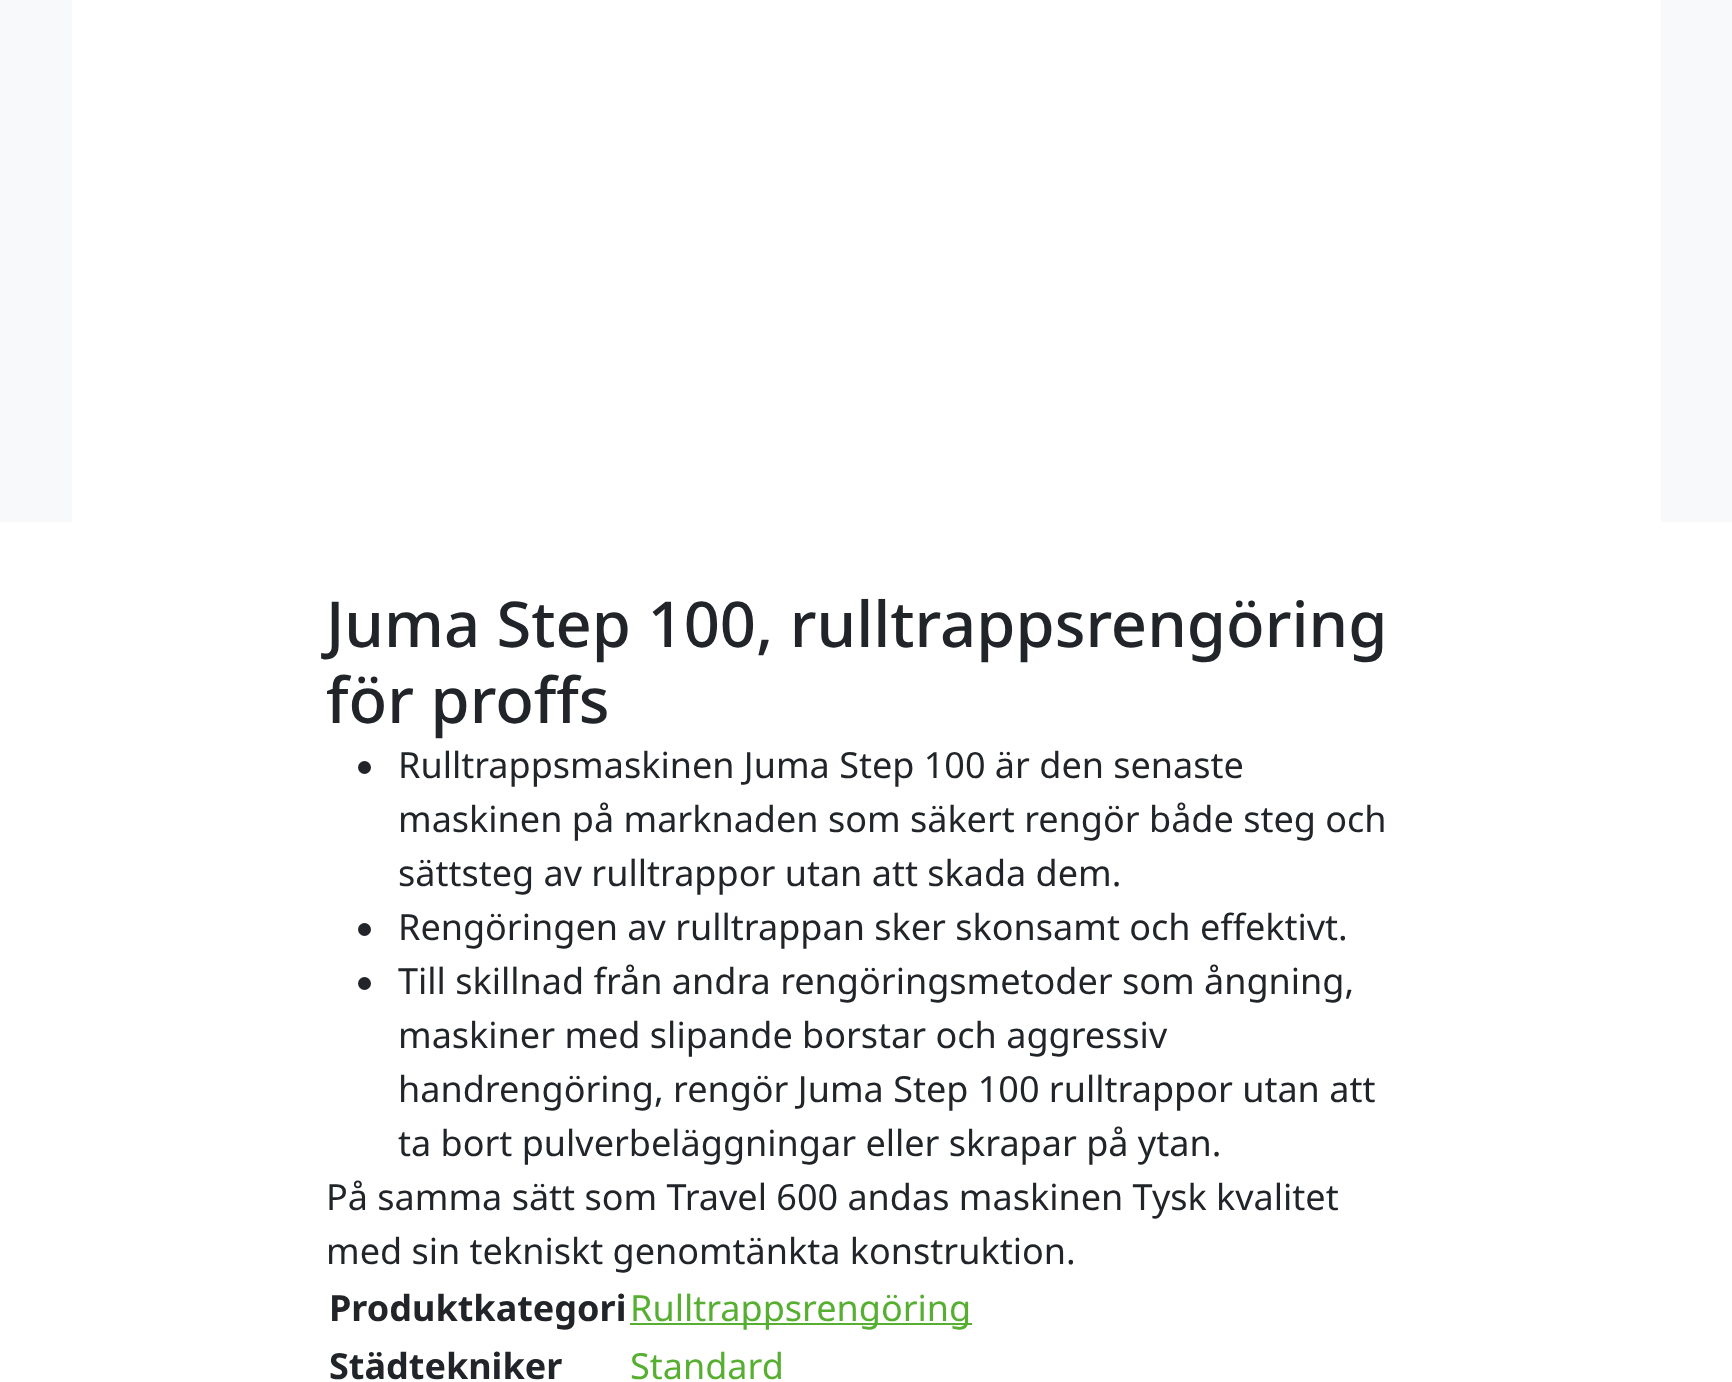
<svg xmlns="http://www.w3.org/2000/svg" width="1732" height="1382">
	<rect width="100%" height="100%" fill="#FFFFFF" />
	<rect x="0" y="0" width="1732" height="522" fill="#F7F9FA" />
	<rect x="72" y="0" width="1589" height="522" fill="#FFFFFF" />
	<g font-family="Noto Sans" font-size="63.25" font-weight="500" fill="#212529">
		<text x="326" y="647">Juma Step 100, rulltrappsrengöring</text>
		<text x="326" y="723">för proffs</text>
	</g>
	<circle cx="364.5" cy="767.5" r="6.5" fill="#212529" />
	<g font-family="Noto Sans" font-size="36" fill="#212529">
		<text x="398" y="778">Rulltrappsmaskinen Juma Step 100 är den senaste</text>
		<text x="398" y="832">maskinen på marknaden som säkert rengör både steg och</text>
		<text x="398" y="886">sättsteg av rulltrappor utan att skada dem.</text>
	</g>
	<circle cx="364.5" cy="929.5" r="6.5" fill="#212529" />
	<text x="398" y="940" font-family="Noto Sans" font-size="36" fill="#212529">Rengöringen av rulltrappan sker skonsamt och effektivt.</text>
	<circle cx="364.5" cy="983.5" r="6.5" fill="#212529" />
	<g font-family="Noto Sans" font-size="36" fill="#212529">
		<text x="398" y="994">Till skillnad från andra rengöringsmetoder som ångning,</text>
		<text x="398" y="1048">maskiner med slipande borstar och aggressiv</text>
		<text x="398" y="1102">handrengöring, rengör Juma Step 100 rulltrappor utan att</text>
		<text x="398" y="1156">ta bort pulverbeläggningar eller skrapar på ytan.</text>
		<text x="326" y="1210">På samma sätt som Travel 600 andas maskinen Tysk kvalitet</text>
		<text x="326" y="1264">med sin tekniskt genomtänkta konstruktion.</text>
	</g>
	<text x="329" y="1321" font-family="Noto Sans" font-size="36" font-weight="700" fill="#212529">Produktkategori</text>
	<rect x="630" y="1323" width="342" height="2" fill="#56AF31" />
	<text x="630" y="1321" font-family="Noto Sans" font-size="36" fill="#56AF31">Rulltrappsrengöring</text>
	<text x="329" y="1379" font-family="Noto Sans" font-size="36" font-weight="700" fill="#212529">Städtekniker</text>
	<text x="630" y="1379" font-family="Noto Sans" font-size="36" fill="#56AF31">Standard</text>
</svg>
